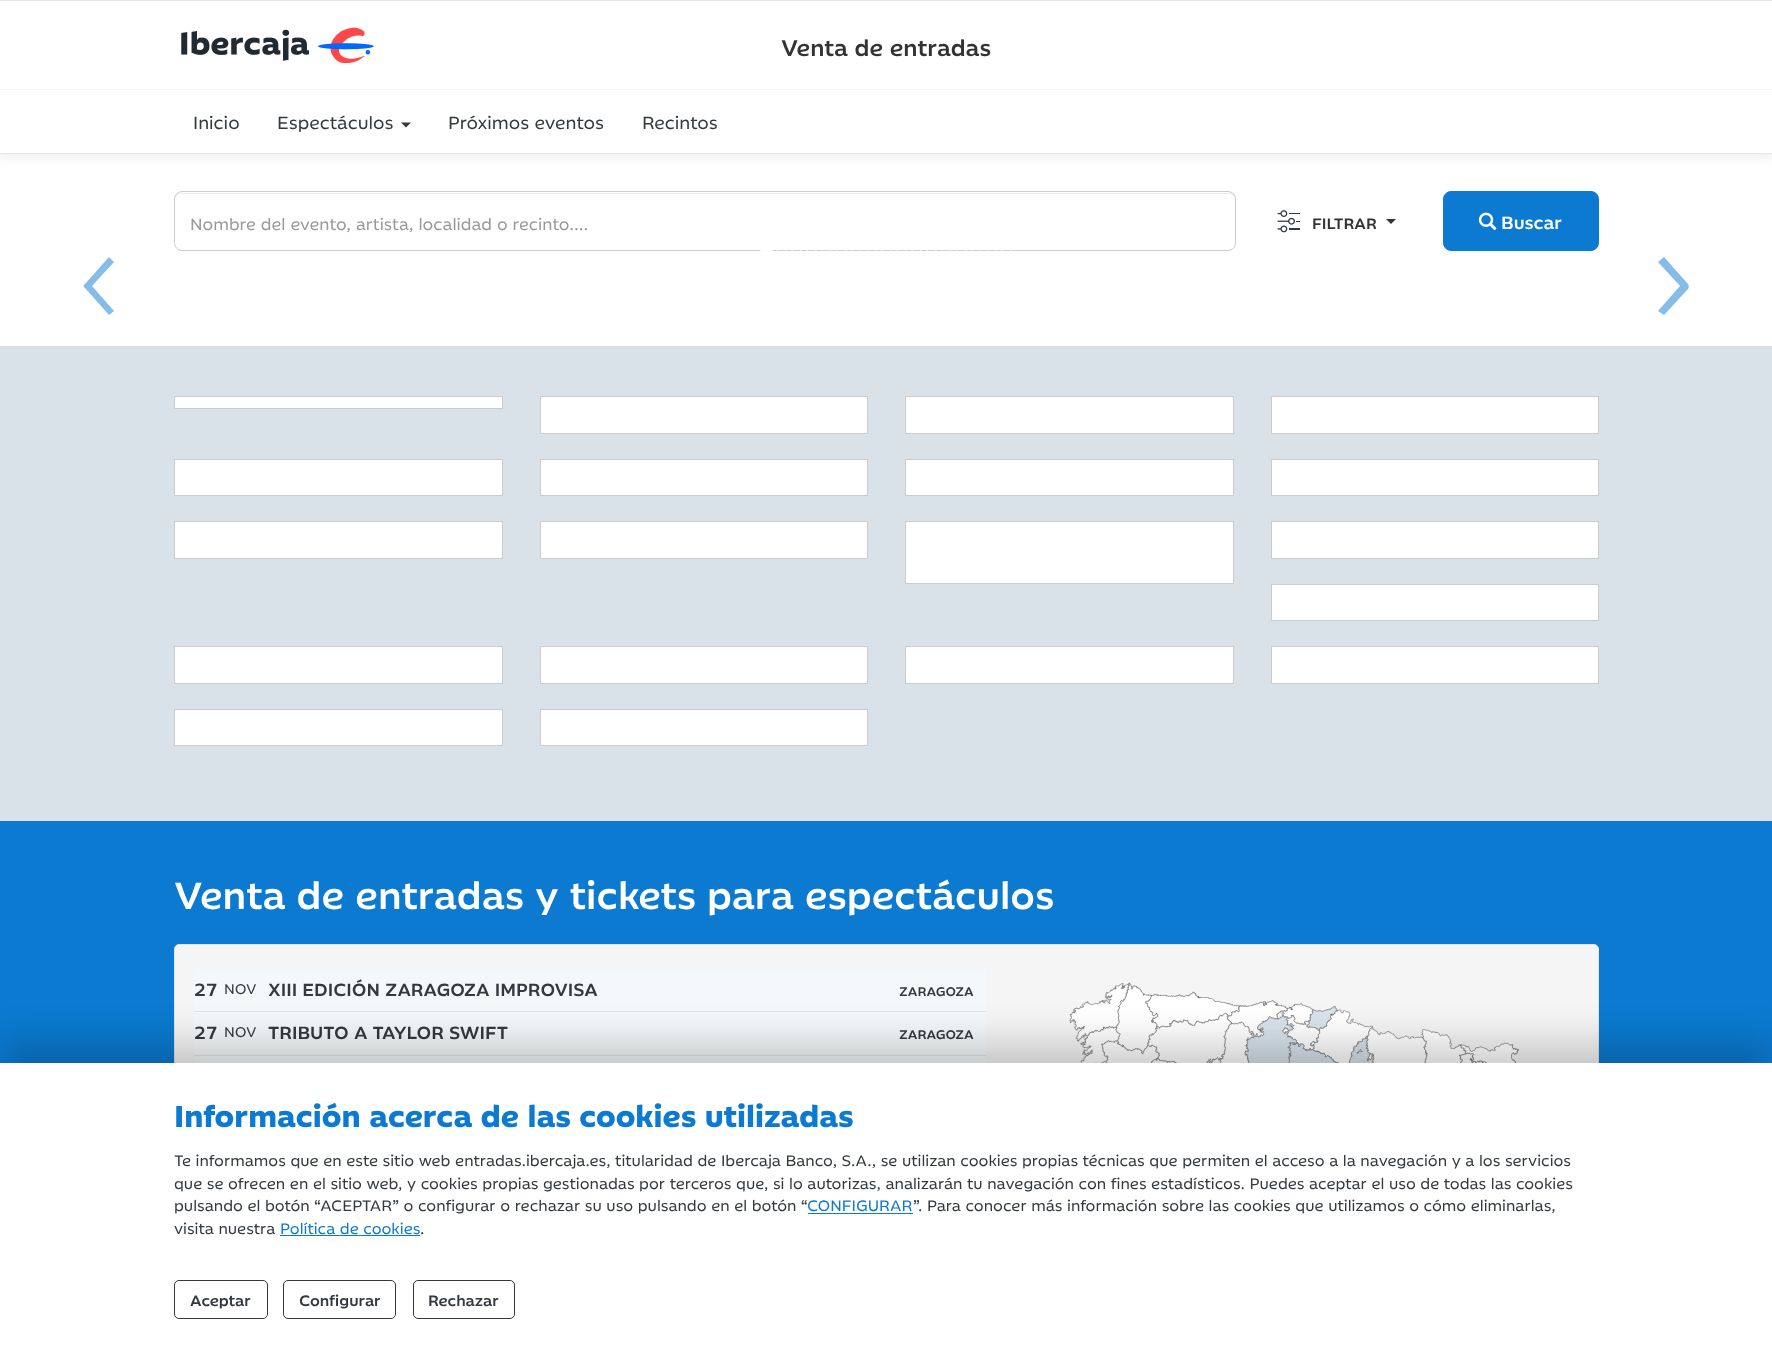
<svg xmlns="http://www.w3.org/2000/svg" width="1772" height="1348">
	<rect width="100%" height="100%" fill="#FFFFFF" />
	<rect x="-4" y="-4" width="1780" height="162" fill="#B3B3B3" fill-opacity="0.21" filter="blur(6px)" />
	<rect x="0" y="1" width="1772" height="152" fill="#FFFFFF" />
	<rect x="0" y="0" width="1772" height="1" fill="#E7E7E7" />
	<rect x="0" y="153" width="1772" height="1" fill="#E7E7E7" />
	<rect x="0" y="89" width="1772" height="1" fill="#F5F8FA" />
	<image x="181" y="27" width="193" height="36" href="assets/img1.png" />
	<text x="781" y="56" font-family="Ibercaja" font-size="22.5" font-weight="500" fill="#333333">Venta de entradas</text>
	<g font-family="Ibercaja" font-size="17.5" fill="#33393E">
		<text x="193" y="129">Inicio</text>
		<text x="277" y="129">Espectáculos</text>
	</g>
	<path d="M401 122.5H411L406 127.5Z" fill="#33393E" />
	<g font-family="Ibercaja" font-size="17.5" fill="#33393E">
		<text x="448" y="129">Próximos eventos</text>
		<text x="642" y="129">Recintos</text>
	</g>
	<path d="M181 194H1229C1232 194 1235 197 1235 200C1235 196 1233 193 1229 193H181C177 193 175 196 175 200C175 197 178 194 181 194Z" fill="#ECECEC" />
	<rect x="174.5" y="191.5" width="1061" height="59" rx="7.5" fill="none" stroke="#CCCCCC" />
	<text x="190" y="230" font-family="Ibercaja" font-size="16.25" fill="#999999">Nombre del evento, artista, localidad o recinto....</text>
	<image x="1277" y="210" width="23" height="23" href="assets/img2.png" />
	<text x="1312" y="229" font-family="Ibercaja" font-size="15" font-weight="500" fill="#333333">FILTRAR</text>
	<path d="M1386 219H1396L1391 224Z" fill="#333333" />
	<rect x="1443.5" y="191.5" width="155" height="59" rx="7.5" fill="#0B7AD0" stroke="#0B7AD0" />
	<image x="1478" y="212" width="19" height="19" href="assets/img3.png" />
	<text x="1501" y="229" font-family="Ibercaja" font-size="17.5" font-weight="500" fill="#FFFFFF">Buscar</text>
	<circle cx="766.5" cy="246.5" r="7" fill="#FFFFFF" stroke="#FFFFFF" />
	<circle cx="781.5" cy="246.5" r="6" fill="none" stroke="#FFFFFF" />
	<circle cx="796.5" cy="246.5" r="6" fill="none" stroke="#FFFFFF" />
	<circle cx="811.5" cy="246.5" r="6" fill="none" stroke="#FFFFFF" />
	<circle cx="826.5" cy="246.5" r="6" fill="none" stroke="#FFFFFF" />
	<circle cx="841.5" cy="246.5" r="6" fill="none" stroke="#FFFFFF" />
	<circle cx="856.5" cy="246.5" r="6" fill="none" stroke="#FFFFFF" />
	<circle cx="871.5" cy="246.5" r="6" fill="none" stroke="#FFFFFF" />
	<circle cx="886.5" cy="246.5" r="6" fill="none" stroke="#FFFFFF" />
	<circle cx="901.5" cy="246.5" r="6" fill="none" stroke="#FFFFFF" />
	<circle cx="916.5" cy="246.5" r="6" fill="none" stroke="#FFFFFF" />
	<circle cx="931.5" cy="246.5" r="6" fill="none" stroke="#FFFFFF" />
	<circle cx="946.5" cy="246.5" r="6" fill="none" stroke="#FFFFFF" />
	<circle cx="961.5" cy="246.5" r="6" fill="none" stroke="#FFFFFF" />
	<circle cx="976.5" cy="246.5" r="6" fill="none" stroke="#FFFFFF" />
	<circle cx="991.5" cy="246.5" r="6" fill="none" stroke="#FFFFFF" />
	<circle cx="1006.5" cy="246.5" r="6" fill="none" stroke="#FFFFFF" />
	<path d="M109 257L114 262L92 286L114 311L109 315L85 288C83 287 83 285 85 284Z" fill="#85BDE8" fill-rule="evenodd" />
	<path d="M1664 315L1658 311L1680 286L1658 262L1664 257L1688 284C1689 285 1689 288 1688 289Z" fill="#85BDE8" fill-rule="evenodd" />
	<rect x="0" y="346" width="1772" height="475" fill="#DAE2E9" />
	<rect x="174.5" y="396.5" width="328" height="12" fill="#FFFFFF" stroke="#CCCCCC" />
	<rect x="540.5" y="396.5" width="327" height="37" fill="#FFFFFF" stroke="#CCCCCC" />
	<rect x="905.5" y="396.5" width="328" height="37" fill="#FFFFFF" stroke="#CCCCCC" />
	<rect x="1271.5" y="396.5" width="327" height="37" fill="#FFFFFF" stroke="#CCCCCC" />
	<rect x="174.5" y="459.5" width="328" height="36" fill="#FFFFFF" stroke="#CCCCCC" />
	<rect x="540.5" y="459.5" width="327" height="36" fill="#FFFFFF" stroke="#CCCCCC" />
	<rect x="905.5" y="459.5" width="328" height="36" fill="#FFFFFF" stroke="#CCCCCC" />
	<rect x="1271.5" y="459.5" width="327" height="36" fill="#FFFFFF" stroke="#CCCCCC" />
	<rect x="174.5" y="521.5" width="328" height="37" fill="#FFFFFF" stroke="#CCCCCC" />
	<rect x="540.5" y="521.5" width="327" height="37" fill="#FFFFFF" stroke="#CCCCCC" />
	<rect x="905.5" y="521.5" width="328" height="62" fill="#FFFFFF" stroke="#CCCCCC" />
	<rect x="1271.5" y="521.5" width="327" height="37" fill="#FFFFFF" stroke="#CCCCCC" />
	<rect x="1271.5" y="584.5" width="327" height="36" fill="#FFFFFF" stroke="#CCCCCC" />
	<rect x="174.5" y="646.5" width="328" height="37" fill="#FFFFFF" stroke="#CCCCCC" />
	<rect x="540.5" y="646.5" width="327" height="37" fill="#FFFFFF" stroke="#CCCCCC" />
	<rect x="905.5" y="646.5" width="328" height="37" fill="#FFFFFF" stroke="#CCCCCC" />
	<rect x="1271.5" y="646.5" width="327" height="37" fill="#FFFFFF" stroke="#CCCCCC" />
	<rect x="174.5" y="709.5" width="328" height="36" fill="#FFFFFF" stroke="#CCCCCC" />
	<rect x="540.5" y="709.5" width="327" height="36" fill="#FFFFFF" stroke="#CCCCCC" />
	<rect x="0" y="821" width="1772" height="242" fill="#0B7AD0" />
	<text x="174" y="909" font-family="Ibercaja" font-size="37.5" font-weight="500" fill="#FFFFFF">Venta de entradas y tickets para espectáculos</text>
	<rect x="174.5" y="944.5" width="1424" height="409" rx="4.5" fill="#F5F5F5" stroke="#E3E3E3" />
	<rect x="194" y="969" width="792" height="94" fill="#F5F8FA" />
	<rect x="194" y="1011" width="792" height="1" fill="#E3E3E3" />
	<text x="194" y="996" font-family="Ibercaja" font-size="17.5" font-weight="500" fill="#33393E">27</text>
	<text x="224" y="994" font-family="Ibercaja" font-size="14" fill="#33393E">NOV</text>
	<text x="268" y="996" font-family="Ibercaja" font-size="17.5" font-weight="500" fill="#33393E">XIII EDICIÓN ZARAGOZA IMPROVISA</text>
	<text x="899" y="996" font-family="Ibercaja" font-size="12.5" font-weight="500" fill="#33393E">ZARAGOZA</text>
	<rect x="194" y="1055" width="792" height="1" fill="#E3E3E3" />
	<text x="194" y="1039" font-family="Ibercaja" font-size="17.5" font-weight="500" fill="#33393E">27</text>
	<text x="224" y="1037" font-family="Ibercaja" font-size="14" fill="#33393E">NOV</text>
	<text x="268" y="1039" font-family="Ibercaja" font-size="17.5" font-weight="500" fill="#33393E">TRIBUTO A TAYLOR SWIFT</text>
	<text x="899" y="1039" font-family="Ibercaja" font-size="12.5" font-weight="500" fill="#33393E">ZARAGOZA</text>
	<image x="1069" y="982" width="450" height="81" href="assets/img4.png" />
	<rect x="0" y="1044" width="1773" height="286" fill="#000000" fill-opacity="0.2" filter="blur(19px)" />
	<rect x="0" y="1063" width="1772" height="285" fill="#FFFFFF" />
	<text x="174" y="1127" font-family="Ibercaja" font-size="30" font-weight="700" fill="#0B7AD0">Información acerca de las cookies utilizadas</text>
	<g font-family="Ibercaja" font-size="15" fill="#33393E">
		<text x="174" y="1166">Te informamos que en este sitio web entradas.ibercaja.es, titularidad de Ibercaja Banco, S.A., se utilizan cookies propias técnicas que permiten el acceso a la navegación y a los servicios</text>
		<text x="174" y="1189">que se ofrecen en el sitio web, y cookies propias gestionadas por terceros que, si lo autorizas, analizarán tu navegación con fines estadísticos. Puedes aceptar el uso de todas las cookies</text>
		<text x="174" y="1211">pulsando el botón “ACEPTAR” o configurar o rechazar su uso pulsando en el botón “</text>
	</g>
	<text x="807" y="1211" font-family="Ibercaja" font-size="15" fill="#0B7AD0">CONFIGURAR</text>
	<rect x="808" y="1213" width="105" height="1" fill="#0B7AD0" />
	<g font-family="Ibercaja" font-size="15" fill="#33393E">
		<text x="913" y="1211">”. Para conocer más información sobre las cookies que utilizamos o cómo eliminarlas,</text>
		<text x="174" y="1234">visita nuestra</text>
	</g>
	<text x="280" y="1234" font-family="Ibercaja" font-size="15" fill="#0B7AD0">Política de cookies</text>
	<rect x="280" y="1235" width="140" height="1" fill="#0B7AD0" />
	<text x="420" y="1234" font-family="Ibercaja" font-size="15" fill="#33393E">.</text>
	<rect x="174.5" y="1280.5" width="93" height="38" rx="4.5" fill="none" stroke="#33393E" />
	<text x="190" y="1306" font-family="Ibercaja" font-size="15" font-weight="500" fill="#33393E">Aceptar</text>
	<rect x="283.5" y="1280.5" width="112" height="38" rx="4.5" fill="none" stroke="#33393E" />
	<text x="299" y="1306" font-family="Ibercaja" font-size="15" font-weight="500" fill="#33393E">Configurar</text>
	<rect x="413.5" y="1280.5" width="101" height="38" rx="4.5" fill="none" stroke="#33393E" />
	<text x="428" y="1306" font-family="Ibercaja" font-size="15" font-weight="500" fill="#33393E">Rechazar</text>
</svg>
